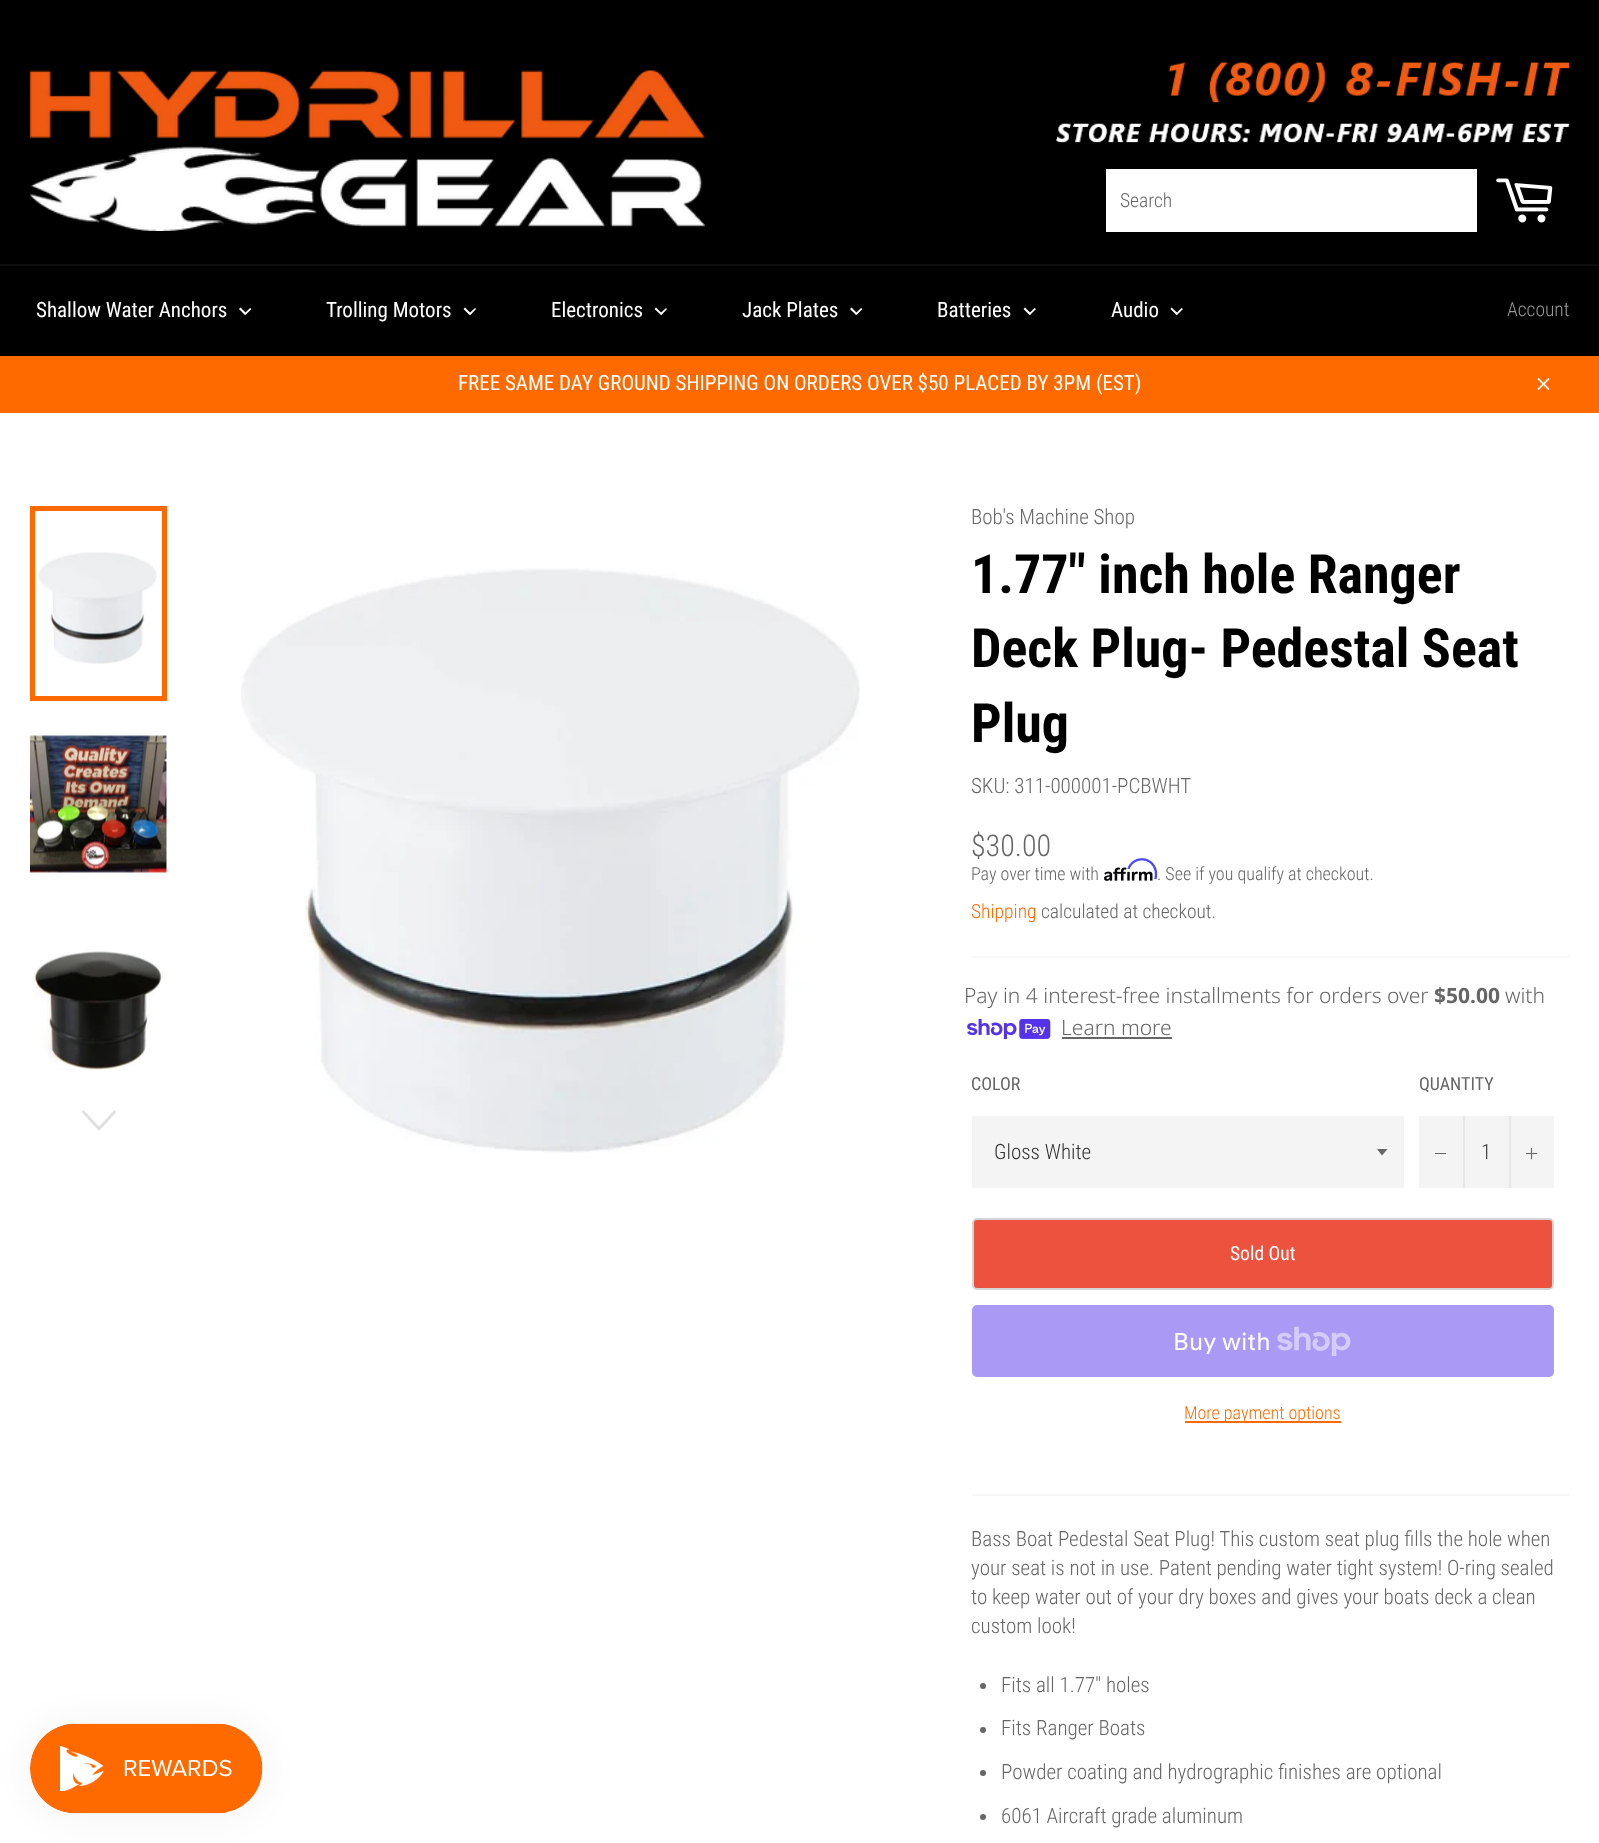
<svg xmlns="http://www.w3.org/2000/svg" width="1599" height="1843">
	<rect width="100%" height="100%" fill="#000000" />
	<image x="30" y="70" width="675" height="161" href="assets/img1.png" />
	<image x="1168" y="62" width="401" height="41" href="assets/img2.png" />
	<image x="1056" y="123" width="513" height="20" href="assets/img3.png" />
	<rect x="1106" y="169" width="371" height="63" fill="#FFFFFF" />
	<text x="1120" y="207" font-family="Roboto Condensed" font-size="19.5" font-weight="300" fill="#666666">Search</text>
	<image x="1496" y="178" width="57" height="45" href="assets/img4.png" />
	<rect x="0" y="264" width="1599" height="2" fill="#0D0D0D" />
	<text x="36" y="317" font-family="Roboto Condensed" font-size="21" fill="#FFFFFF">Shallow Water Anchors</text>
	<path d="M250 308L251.5 309L245.5 315L244.5 313.5Z" fill="#FFFFFF" />
	<path d="M240.5 307.5L246.5 313.5L245 315L239 309Z" fill="#FFFFFF" />
	<text x="326" y="317" font-family="Roboto Condensed" font-size="21" fill="#FFFFFF">Trolling Motors</text>
	<path d="M475 308L476 309L470.5 315L469 313.5Z" fill="#FFFFFF" />
	<path d="M465 307.5L471 313.5L469.5 315L463.5 309Z" fill="#FFFFFF" />
	<text x="551" y="317" font-family="Roboto Condensed" font-size="21" fill="#FFFFFF">Electronics</text>
	<path d="M666 308L667 309L661.5 315L660 313.5Z" fill="#FFFFFF" />
	<path d="M656 307.5L662 313.5L661 315L654.5 309Z" fill="#FFFFFF" />
	<text x="742" y="317" font-family="Roboto Condensed" font-size="21" fill="#FFFFFF">Jack Plates</text>
	<path d="M861 308L862.5 309L856.5 315L855.5 313.5Z" fill="#FFFFFF" />
	<path d="M851.5 307.5L857.5 313.5L856 315L850 309Z" fill="#FFFFFF" />
	<text x="937" y="317" font-family="Roboto Condensed" font-size="21" fill="#FFFFFF">Batteries</text>
	<path d="M1034.5 308L1036 309L1030 315L1029 313.5Z" fill="#FFFFFF" />
	<path d="M1025 307.5L1031 313.5L1029.5 315L1023.5 309Z" fill="#FFFFFF" />
	<text x="1111" y="317" font-family="Roboto Condensed" font-size="21" fill="#FFFFFF">Audio</text>
	<path d="M1181.5 308L1183 309L1177 315L1176 313.5Z" fill="#FFFFFF" />
	<path d="M1171.5 307.5L1178 313.5L1176.5 315L1170.5 309Z" fill="#FFFFFF" />
	<text x="1507" y="316" font-family="Roboto Condensed" font-size="19.5" font-weight="300" fill="#999999">Account</text>
	<rect x="0" y="356" width="1599" height="57" fill="#FF6A00" />
	<text x="458" y="390" font-family="Roboto Condensed" font-size="21" fill="#FFFFFF">FREE SAME DAY GROUND SHIPPING ON ORDERS OVER $50 PLACED BY 3PM (EST)</text>
	<image x="1537" y="378" width="13" height="12" href="assets/img5.png" />
	<rect x="0" y="413" width="1599" height="1430" fill="#FFFFFF" />
	<rect x="30" y="1724" width="233" height="90" rx="45" fill="#000000" fill-opacity="0.05" filter="blur(19px)" />
	<image x="30" y="1723" width="233" height="91" href="assets/img6.png" />
	<image x="38" y="552" width="119" height="112" href="assets/img7.png" />
	<rect x="32.5" y="508.5" width="132" height="190" fill="none" stroke="#FF6A00" stroke-width="5" />
	<image x="30" y="735" width="137" height="138" href="assets/img8.png" />
	<image x="33" y="951" width="130" height="119" href="assets/img9.png" />
	<path d="M114.5 1110L116.5 1112L99 1131L81.5 1112L83.5 1110L99 1126.5Z" fill="#E0E0E0" />
	<image x="241" y="568" width="619" height="585" href="assets/img10.png" />
	<text x="971" y="524" font-family="Roboto Condensed" font-size="21" font-weight="300" fill="#666666">Bob's Machine Shop</text>
	<g font-family="Roboto Condensed" font-size="54" font-weight="700" fill="#000000">
		<text x="971" y="593">1.77" inch hole Ranger</text>
		<text x="971" y="667">Deck Plug- Pedestal Seat</text>
		<text x="971" y="742">Plug</text>
	</g>
	<text x="971" y="793" font-family="Roboto Condensed" font-size="21" font-weight="300" fill="#666666">SKU: 311-000001-PCBWHT</text>
	<text x="971" y="856" font-family="Roboto Condensed" font-size="30" font-weight="300" fill="#666666">$30.00</text>
	<text x="971" y="880" font-family="Roboto Condensed" font-size="18" font-weight="300" fill="#666666">Pay over time with</text>
	<image x="1104" y="867" width="49" height="14" href="assets/img12.png" />
	<text x="1157" y="880" font-family="Roboto Condensed" font-size="18" font-weight="300" fill="#666666">. See if you qualify at checkout.</text>
	<image x="1127" y="858" width="31" height="22" href="assets/img11.png" />
	<text x="971" y="918" font-family="Roboto Condensed" font-size="19.5" font-weight="300" fill="#FF6A00">Shipping</text>
	<text x="1041" y="918" font-family="Roboto Condensed" font-size="19.5" font-weight="300" fill="#666666">calculated at checkout.</text>
	<rect x="972" y="956" width="597" height="2" fill="#F7F7F7" />
	<text x="964" y="1003" font-family="Noto Sans" font-size="21" font-weight="300" fill="#666666">Pay in 4 interest-free installments for orders over</text>
	<text x="1434" y="1003" font-family="Noto Sans" font-size="21" font-weight="700" fill="#666666">$50.00</text>
	<text x="1505" y="1003" font-family="Noto Sans" font-size="21" font-weight="300" fill="#666666">with</text>
	<image x="967" y="1019" width="84" height="21" href="assets/img13.png" />
	<text x="1061" y="1035" font-family="Noto Sans" font-size="21" font-weight="300" fill="#666666">Learn more</text>
	<rect x="1062" y="1037" width="110" height="2" fill="#666666" />
	<text x="971" y="1090" font-family="Roboto Condensed" font-size="18" fill="#666666">COLOR</text>
	<rect x="972" y="1116" width="432" height="72" fill="#F4F4F4" />
	<path d="M1377 1149L1382 1155.5L1387.5 1149Z" fill="#666666" />
	<text x="994" y="1159" font-family="Roboto Condensed" font-size="21" font-weight="300" fill="#333333">Gloss White</text>
	<text x="1419" y="1090" font-family="Roboto Condensed" font-size="18" fill="#666666">QUANTITY</text>
	<rect x="1419" y="1116" width="135" height="72" fill="#F4F4F4" />
	<rect x="1463" y="1116" width="2" height="72" fill="#E7E7E7" />
	<rect x="1435" y="1153" width="11" height="1" fill="#666666" />
	<text x="1481" y="1159" font-family="Roboto Condensed" font-size="21" font-weight="300" fill="#333333">1</text>
	<rect x="1509" y="1116" width="2" height="72" fill="#E7E7E7" />
	<image x="1526" y="1148" width="12" height="12" href="assets/img14.png" />
	<rect x="973" y="1219" width="580" height="70" rx="4" fill="#EC523E" stroke="#D5D5D5" stroke-width="2" />
	<text x="1230" y="1260" font-family="Roboto Condensed" font-size="19.5" fill="#FFFFFF">Sold Out</text>
	<rect x="972" y="1305" width="582" height="72" rx="5" fill="#AA99F5" />
	<text x="1173" y="1350" font-family="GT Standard" font-size="24" fill="#FFFFFF">Buy with</text>
	<image x="1277" y="1326" width="74" height="30" href="assets/img15.png" />
	<rect x="1185" y="1421" width="156" height="2" fill="#FF6A00" />
	<text x="1184" y="1419" font-family="Roboto Condensed" font-size="18" font-weight="300" fill="#FF6A00">More payment options</text>
	<rect x="972" y="1494" width="597" height="2" fill="#F7F7F7" />
	<g font-family="Roboto Condensed" font-size="21" font-weight="300" fill="#666666">
		<text x="971" y="1546">Bass Boat Pedestal Seat Plug! This custom seat plug fills the hole when</text>
		<text x="971" y="1575">your seat is not in use. Patent pending water tight system! O-ring sealed</text>
		<text x="971" y="1604">to keep water out of your dry boxes and gives your boats deck a clean</text>
		<text x="971" y="1633">custom look!</text>
	</g>
	<circle cx="983" cy="1686" r="3" fill="#666666" />
	<text x="1001" y="1692" font-family="Roboto Condensed" font-size="21" font-weight="300" fill="#666666">Fits all 1.77″ holes</text>
	<circle cx="983" cy="1730" r="3" fill="#666666" />
	<text x="1001" y="1735" font-family="Roboto Condensed" font-size="21" font-weight="300" fill="#666666">Fits Ranger Boats</text>
	<circle cx="983" cy="1773" r="3" fill="#666666" />
	<text x="1001" y="1779" font-family="Roboto Condensed" font-size="21" font-weight="300" fill="#666666">Powder coating and hydrographic finishes are optional</text>
	<circle cx="983" cy="1817" r="3" fill="#666666" />
	<text x="1001" y="1823" font-family="Roboto Condensed" font-size="21" font-weight="300" fill="#666666">6061 Aircraft grade aluminum</text>
</svg>
